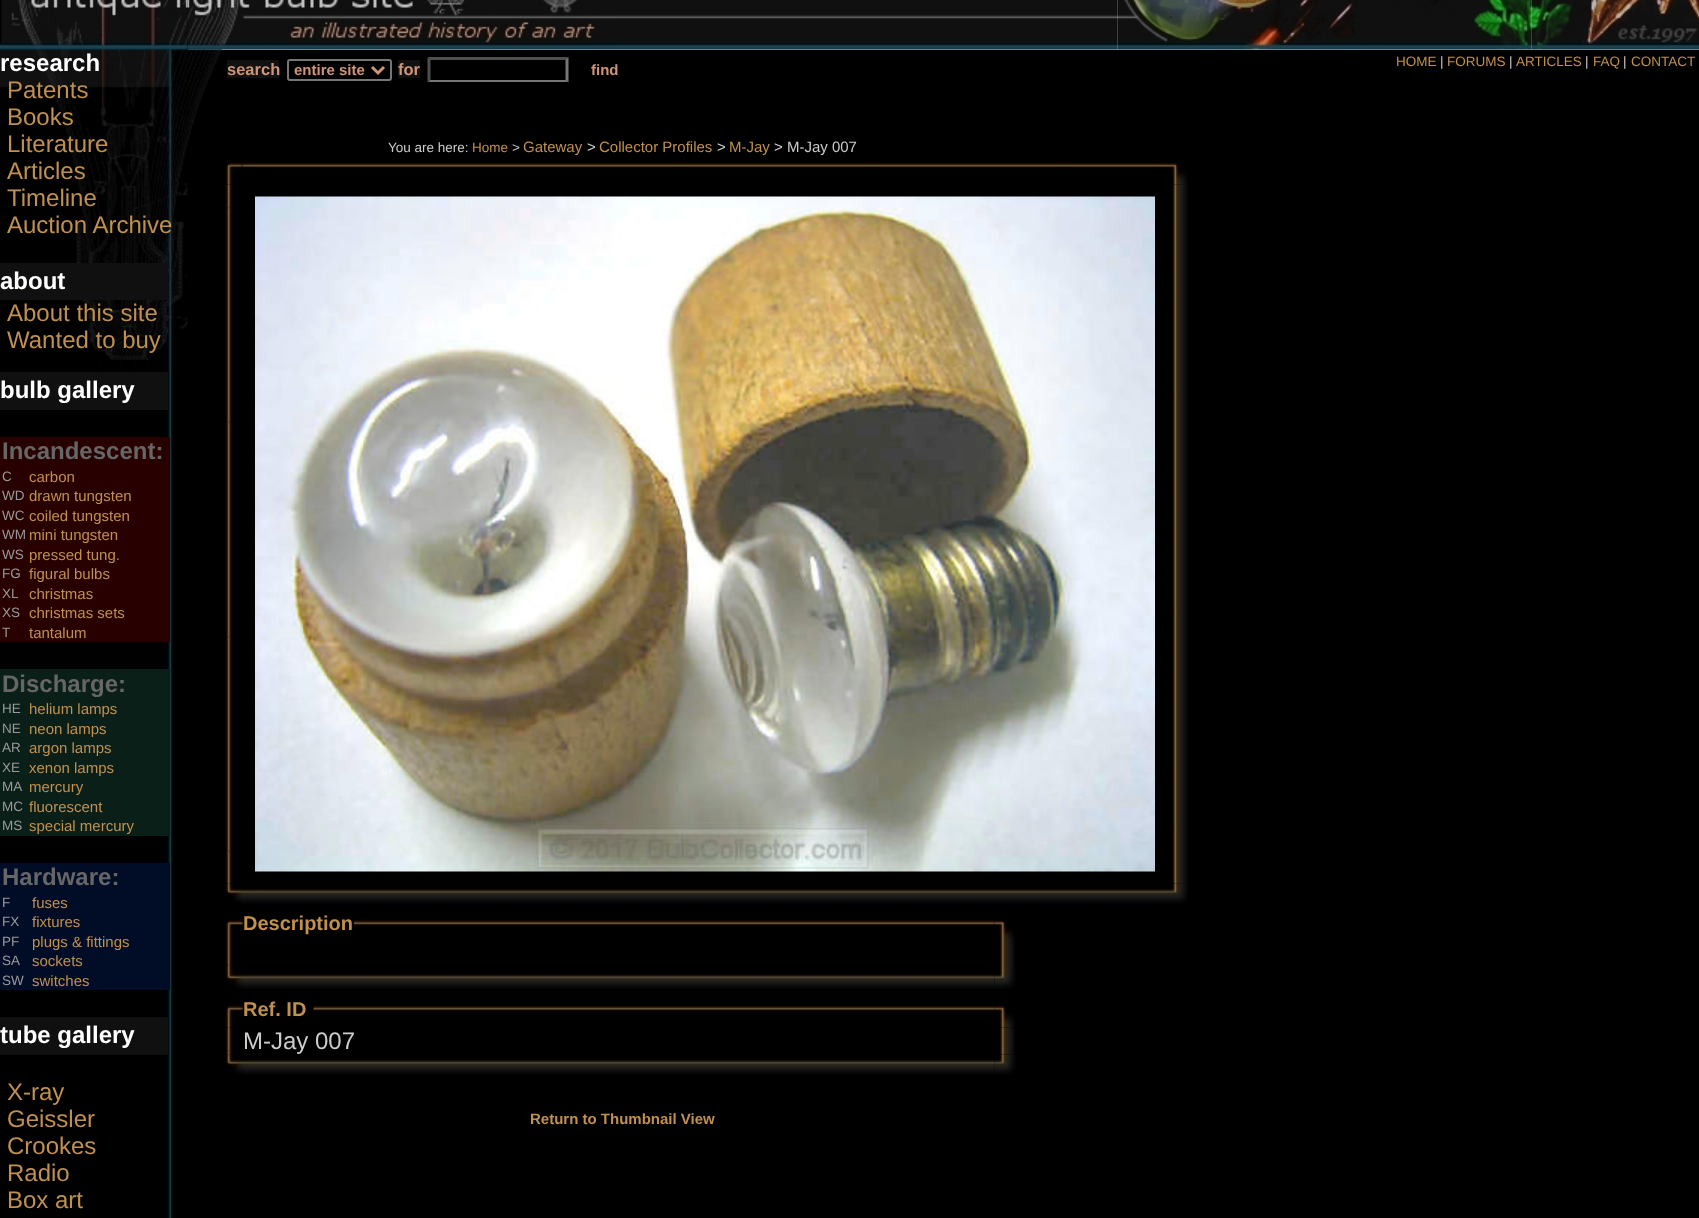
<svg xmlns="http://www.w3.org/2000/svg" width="1699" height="1218">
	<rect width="100%" height="100%" fill="#000000" />
	<image x="0" y="49" width="188" height="1169" href="assets/img8.png" />
	<image x="0" y="49" width="188" height="323" href="assets/img9.png" />
	<image x="0" y="0" width="188" height="50" href="assets/img1.png" />
	<rect x="188" y="49" width="427" height="1" fill="#CCCCCC" />
	<image x="187" y="0" width="251" height="50" href="assets/img2.png" />
	<image x="438" y="0" width="177" height="50" href="assets/img3.png" />
	<rect x="615" y="0" width="503" height="50" fill="#CCCCCC" />
	<image x="615" y="0" width="503" height="50" href="assets/img4.png" />
	<rect x="1118" y="49" width="262" height="1" fill="#CCCCCC" />
	<image x="1117" y="0" width="263" height="50" href="assets/img5.png" />
	<rect x="1380" y="0" width="152" height="50" fill="#CCCCCC" />
	<image x="1380" y="0" width="152" height="50" href="assets/img6.png" />
	<rect x="1532" y="49" width="167" height="1" fill="#CCCCCC" />
	<image x="1531" y="0" width="168" height="50" href="assets/img7.png" />
	<text x="0" y="71" font-family="Liberation Sans" font-size="24" font-weight="700" fill="#FFFFFF">research</text>
	<g font-family="Liberation Sans" font-size="24" fill="#C09050">
		<text x="7" y="98">Patents</text>
		<text x="7" y="125">Books</text>
		<text x="7" y="152">Literature</text>
		<text x="7" y="179">Articles</text>
		<text x="7" y="206">Timeline</text>
		<text x="7" y="233">Auction Archive</text>
	</g>
	<rect x="0" y="263" width="168" height="37" fill="#101010" />
	<text x="0" y="289" font-family="Liberation Sans" font-size="24" font-weight="700" fill="#FFFFFF">about</text>
	<g font-family="Liberation Sans" font-size="24" fill="#C09050">
		<text x="7" y="321">About this site</text>
		<text x="7" y="348">Wanted to buy</text>
	</g>
	<rect x="0" y="372" width="168" height="38" fill="#101010" />
	<text x="0" y="398" font-family="Liberation Sans" font-size="24" font-weight="700" fill="#FFFFFF">bulb gallery</text>
	<rect x="0" y="437" width="170" height="205" fill="#280000" />
	<text x="2" y="459" font-family="Liberation Sans" font-size="24" font-weight="700" fill="#666666">Incandescent:</text>
	<text x="2" y="481" font-family="Liberation Sans" font-size="13.5" fill="#999999">C</text>
	<text x="29" y="482" font-family="Liberation Sans" font-size="15" fill="#C09050">carbon</text>
	<text x="2" y="500" font-family="Liberation Sans" font-size="13.5" fill="#999999">WD</text>
	<text x="29" y="501" font-family="Liberation Sans" font-size="15" fill="#C09050">drawn tungsten</text>
	<text x="2" y="520" font-family="Liberation Sans" font-size="13.5" fill="#999999">WC</text>
	<text x="29" y="521" font-family="Liberation Sans" font-size="15" fill="#C09050">coiled tungsten</text>
	<text x="2" y="539" font-family="Liberation Sans" font-size="13.5" fill="#999999">WM</text>
	<text x="29" y="540" font-family="Liberation Sans" font-size="15" fill="#C09050">mini tungsten</text>
	<text x="2" y="559" font-family="Liberation Sans" font-size="13.5" fill="#999999">WS</text>
	<text x="29" y="560" font-family="Liberation Sans" font-size="15" fill="#C09050">pressed tung.</text>
	<text x="2" y="578" font-family="Liberation Sans" font-size="13.5" fill="#999999">FG</text>
	<text x="29" y="579" font-family="Liberation Sans" font-size="15" fill="#C09050">figural bulbs</text>
	<text x="2" y="598" font-family="Liberation Sans" font-size="13.5" fill="#999999">XL</text>
	<text x="29" y="599" font-family="Liberation Sans" font-size="15" fill="#C09050">christmas</text>
	<text x="2" y="617" font-family="Liberation Sans" font-size="13.5" fill="#999999">XS</text>
	<text x="29" y="618" font-family="Liberation Sans" font-size="15" fill="#C09050">christmas sets</text>
	<text x="2" y="637" font-family="Liberation Sans" font-size="13.5" fill="#999999">T</text>
	<text x="29" y="638" font-family="Liberation Sans" font-size="15" fill="#C09050">tantalum</text>
	<rect x="0" y="669" width="170" height="167" fill="#0A1F18" />
	<text x="2" y="692" font-family="Liberation Sans" font-size="24" font-weight="700" fill="#666666">Discharge:</text>
	<text x="2" y="713" font-family="Liberation Sans" font-size="13.5" fill="#999999">HE</text>
	<text x="29" y="714" font-family="Liberation Sans" font-size="15" fill="#C09050">helium lamps</text>
	<text x="2" y="733" font-family="Liberation Sans" font-size="13.5" fill="#999999">NE</text>
	<text x="29" y="734" font-family="Liberation Sans" font-size="15" fill="#C09050">neon lamps</text>
	<text x="2" y="752" font-family="Liberation Sans" font-size="13.5" fill="#999999">AR</text>
	<text x="29" y="753" font-family="Liberation Sans" font-size="15" fill="#C09050">argon lamps</text>
	<text x="2" y="772" font-family="Liberation Sans" font-size="13.5" fill="#999999">XE</text>
	<text x="29" y="773" font-family="Liberation Sans" font-size="15" fill="#C09050">xenon lamps</text>
	<text x="2" y="791" font-family="Liberation Sans" font-size="13.5" fill="#999999">MA</text>
	<text x="29" y="792" font-family="Liberation Sans" font-size="15" fill="#C09050">mercury</text>
	<text x="2" y="811" font-family="Liberation Sans" font-size="13.5" fill="#999999">MC</text>
	<text x="29" y="812" font-family="Liberation Sans" font-size="15" fill="#C09050">fluorescent</text>
	<text x="2" y="830" font-family="Liberation Sans" font-size="13.5" fill="#999999">MS</text>
	<text x="29" y="831" font-family="Liberation Sans" font-size="15" fill="#C09050">special mercury</text>
	<rect x="0" y="863" width="170" height="127" fill="#010C27" />
	<text x="2" y="885" font-family="Liberation Sans" font-size="24" font-weight="700" fill="#666666">Hardware:</text>
	<text x="2" y="907" font-family="Liberation Sans" font-size="13.5" fill="#999999">F</text>
	<text x="32" y="908" font-family="Liberation Sans" font-size="15" fill="#C09050">fuses</text>
	<text x="2" y="926" font-family="Liberation Sans" font-size="13.5" fill="#999999">FX</text>
	<text x="32" y="927" font-family="Liberation Sans" font-size="15" fill="#C09050">fixtures</text>
	<text x="2" y="946" font-family="Liberation Sans" font-size="13.5" fill="#999999">PF</text>
	<text x="32" y="947" font-family="Liberation Sans" font-size="15" fill="#C09050">plugs &amp; fittings</text>
	<text x="2" y="965" font-family="Liberation Sans" font-size="13.5" fill="#999999">SA</text>
	<text x="32" y="966" font-family="Liberation Sans" font-size="15" fill="#C09050">sockets</text>
	<text x="2" y="985" font-family="Liberation Sans" font-size="13.5" fill="#999999">SW</text>
	<text x="32" y="986" font-family="Liberation Sans" font-size="15" fill="#C09050">switches</text>
	<rect x="0" y="1017" width="168" height="38" fill="#101010" />
	<text x="0" y="1043" font-family="Liberation Sans" font-size="24" font-weight="700" fill="#FFFFFF">tube gallery</text>
	<g font-family="Liberation Sans" font-size="24" fill="#C09050">
		<text x="7" y="1100">X-ray</text>
		<text x="7" y="1127">Geissler</text>
		<text x="7" y="1154">Crookes</text>
		<text x="7" y="1181">Radio</text>
		<text x="7" y="1208">Box art</text>
	</g>
	<image x="187" y="49" width="35" height="95" href="assets/img10.png" />
	<rect x="227" y="60" width="52" height="18" fill="#111111" />
	<text x="227" y="75" font-family="Liberation Sans" font-size="16.5" font-weight="700" fill="#D09578">search</text>
	<rect x="288" y="60" width="103" height="20" rx="2" fill="none" stroke="#767676" stroke-width="2" />
	<path d="M372 67L378 73L384 67" fill="none" stroke="#D09578" stroke-width="3" />
	<text x="294" y="75" font-family="Liberation Sans" font-size="15" font-weight="700" fill="#D09578">entire site</text>
	<rect x="398" y="60" width="22" height="18" fill="#111111" />
	<text x="398" y="75" font-family="Liberation Sans" font-size="16.5" font-weight="700" fill="#D09578">for</text>
	<path d="M428 57H568L566 60H430Z" fill="#4F4F4F" />
	<path d="M568.5 57V82.5L565.5 79.5V60Z" fill="#767676" />
	<path d="M568 82H428L430 80H566Z" fill="#767676" />
	<path d="M427.5 82.5V57L430.5 60V79.5Z" fill="#4F4F4F" />
	<text x="591" y="75" font-family="Liberation Sans" font-size="15" font-weight="700" fill="#D09578">find</text>
	<text x="1396" y="66" font-family="Liberation Sans" font-size="13.5" fill="#C09050">HOME</text>
	<text x="1440" y="66" font-family="Liberation Sans" font-size="13.5" fill="#CCCCCC">|</text>
	<text x="1447" y="66" font-family="Liberation Sans" font-size="13.5" fill="#C09050">FORUMS</text>
	<text x="1509" y="66" font-family="Liberation Sans" font-size="13.5" fill="#CCCCCC">|</text>
	<text x="1516" y="66" font-family="Liberation Sans" font-size="13.5" fill="#C09050">ARTICLES</text>
	<text x="1585" y="66" font-family="Liberation Sans" font-size="13.5" fill="#CCCCCC">|</text>
	<text x="1593" y="66" font-family="Liberation Sans" font-size="13.5" fill="#C09050">FAQ</text>
	<text x="1623" y="66" font-family="Liberation Sans" font-size="13.5" fill="#CCCCCC">|</text>
	<text x="1631" y="66" font-family="Liberation Sans" font-size="13.5" fill="#C09050">CONTACT</text>
	<text x="388" y="152" font-family="Liberation Sans" font-size="13.5" fill="#CCCCCC">You are here:</text>
	<text x="472" y="152" font-family="Liberation Sans" font-size="13.5" fill="#C09050">Home</text>
	<text x="512" y="152" font-family="Liberation Sans" font-size="13.5" fill="#CCCCCC">&gt;</text>
	<text x="523" y="152" font-family="Liberation Sans" font-size="15" fill="#C09050">Gateway</text>
	<text x="587" y="152" font-family="Liberation Sans" font-size="15" fill="#CCCCCC">&gt;</text>
	<text x="599" y="152" font-family="Liberation Sans" font-size="15" fill="#C09050">Collector Profiles</text>
	<text x="717" y="152" font-family="Liberation Sans" font-size="15" fill="#CCCCCC">&gt;</text>
	<text x="729" y="152" font-family="Liberation Sans" font-size="15" fill="#C09050">M-Jay</text>
	<text x="774" y="152" font-family="Liberation Sans" font-size="15" fill="#CCCCCC">&gt; M-Jay 007</text>
	<image x="225" y="184" width="8" height="700" href="assets/img14.png" />
	<image x="225" y="162" width="18" height="23" href="assets/img11.png" />
	<image x="243" y="162" width="924" height="7" href="assets/img12.png" />
	<image x="1172" y="184" width="16" height="700" href="assets/img16.png" />
	<image x="1167" y="161" width="21" height="24" href="assets/img13.png" />
	<image x="255" y="196" width="900" height="676" href="assets/img15.png" />
	<image x="225" y="883" width="18" height="20" href="assets/img17.png" />
	<image x="243" y="889" width="924" height="15" href="assets/img18.png" />
	<image x="1167" y="883" width="21" height="21" href="assets/img19.png" />
	<image x="225" y="919" width="18" height="23" href="assets/img20.png" />
	<text x="243" y="930" font-family="Liberation Sans" font-size="20" font-weight="700" fill="#C09050">Description</text>
	<image x="354" y="919" width="641" height="7" href="assets/img21.png" />
	<image x="994" y="917" width="21" height="25" href="assets/img22.png" />
	<image x="225" y="942" width="8" height="27" href="assets/img23.png" />
	<image x="999" y="942" width="16" height="27" href="assets/img24.png" />
	<image x="225" y="969" width="18" height="20" href="assets/img25.png" />
	<image x="243" y="974" width="752" height="15" href="assets/img26.png" />
	<image x="994" y="969" width="22" height="20" href="assets/img27.png" />
	<image x="225" y="1027" width="8" height="28" href="assets/img31.png" />
	<image x="225" y="1005" width="18" height="23" href="assets/img28.png" />
	<text x="243" y="1016" font-family="Liberation Sans" font-size="20" font-weight="700" fill="#C09050">Ref. ID</text>
	<image x="313" y="1005" width="682" height="7" href="assets/img29.png" />
	<image x="999" y="1027" width="16" height="28" href="assets/img32.png" />
	<image x="994" y="1002" width="21" height="26" href="assets/img30.png" />
	<text x="243" y="1049" font-family="Liberation Sans" font-size="24" fill="#CCCCCC">M-Jay 007</text>
	<image x="225" y="1054" width="18" height="20" href="assets/img33.png" />
	<image x="243" y="1060" width="752" height="15" href="assets/img34.png" />
	<image x="994" y="1054" width="22" height="21" href="assets/img35.png" />
	<text x="530" y="1124" font-family="Liberation Sans" font-size="15" font-weight="700" fill="#C09050">Return to Thumbnail View</text>
</svg>
